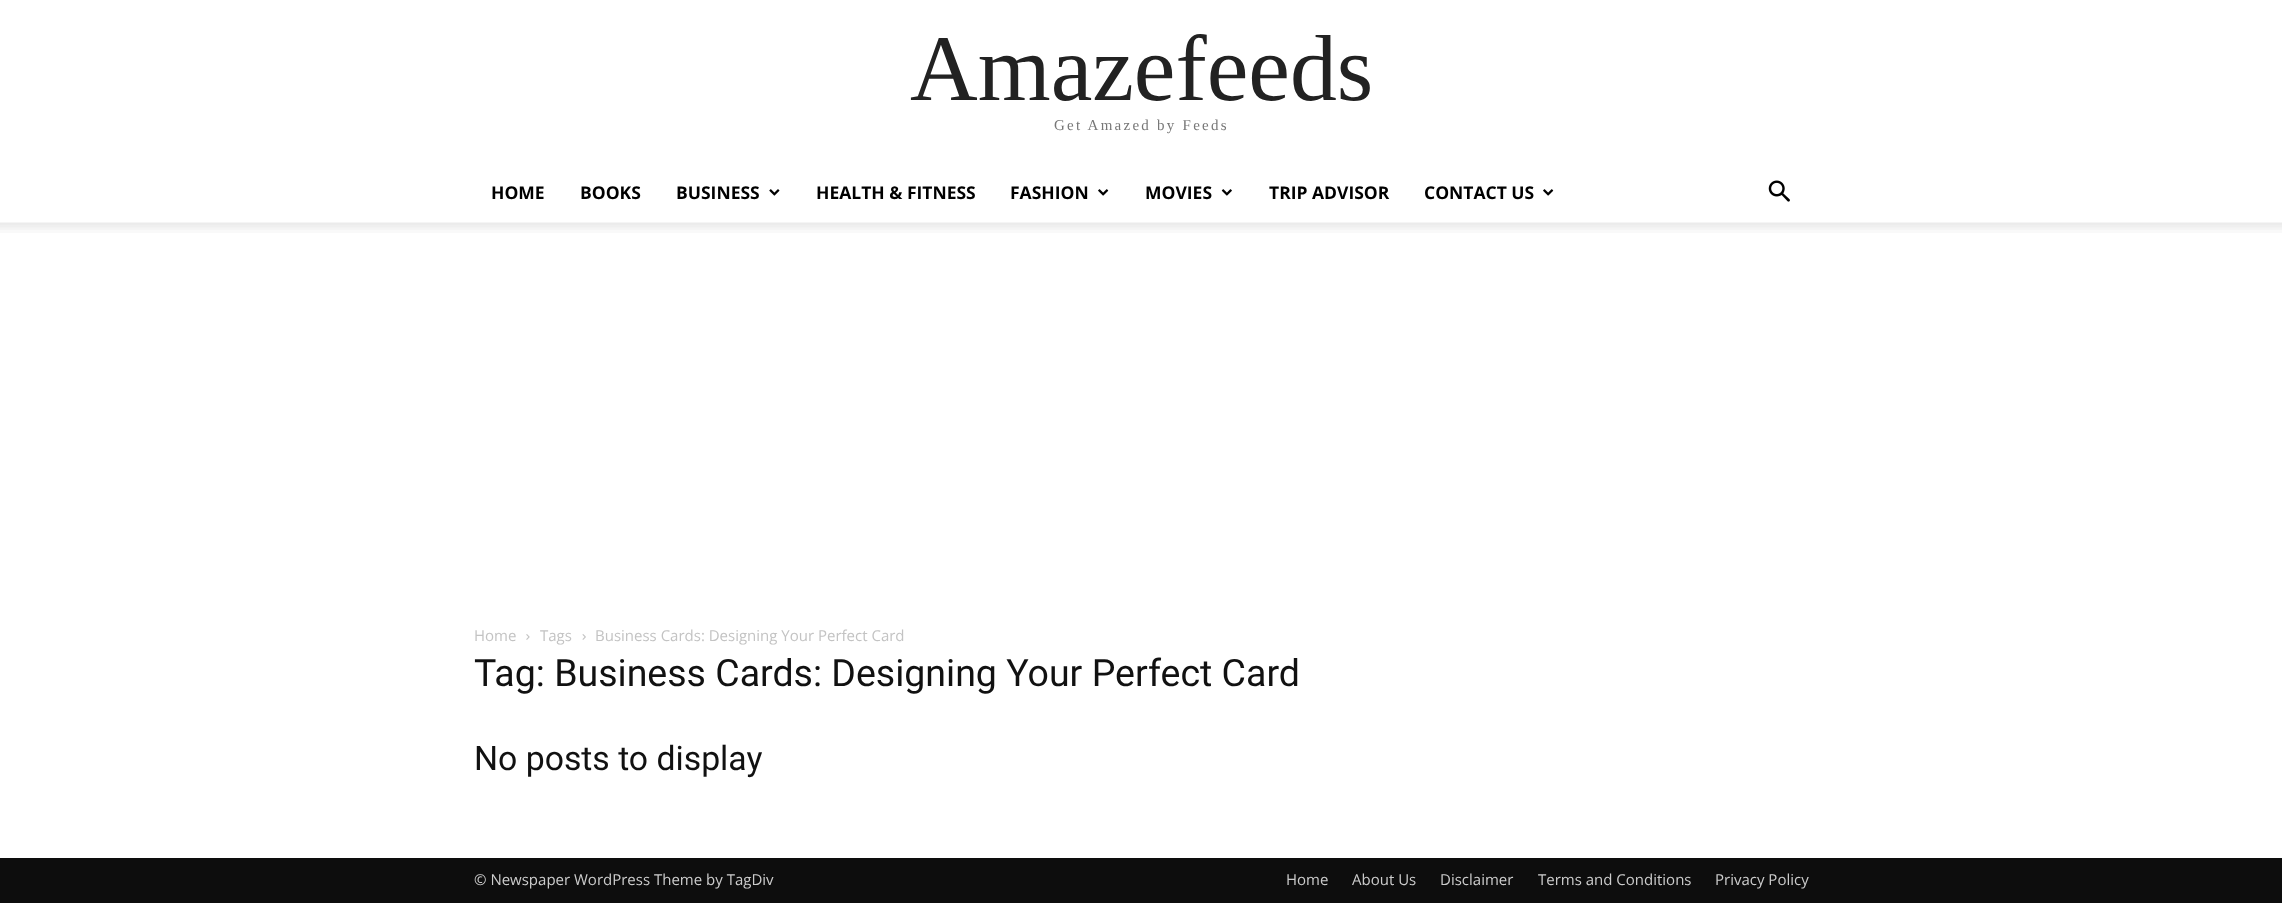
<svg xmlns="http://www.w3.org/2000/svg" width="2282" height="921">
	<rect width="100%" height="100%" fill="#FFFFFF" />
	<text x="910" y="100" font-family="Liberation Serif" font-size="93.75" fill="#222222">Amazefeeds</text>
	<text x="1054" y="130" font-family="Liberation Serif" font-size="15" letter-spacing="2.25" fill="#777777">Get Amazed by Feeds</text>
	<g font-family="Open Sans" font-size="17.5" font-weight="700" fill="#000000">
		<text x="491" y="199">HOME</text>
		<text x="580" y="199">BOOKS</text>
		<text x="676" y="199">BUSINESS</text>
	</g>
	<image x="769" y="189" width="11" height="7" href="assets/img1.png" />
	<g font-family="Open Sans" font-size="17.5" font-weight="700" fill="#000000">
		<text x="816" y="199">HEALTH &amp; FITNESS</text>
		<text x="1010" y="199">FASHION</text>
	</g>
	<image x="1098" y="189" width="11" height="7" href="assets/img2.png" />
	<text x="1145" y="199" font-family="Open Sans" font-size="17.5" font-weight="700" fill="#000000">MOVIES</text>
	<image x="1221" y="189" width="11" height="7" href="assets/img3.png" />
	<g font-family="Open Sans" font-size="17.5" font-weight="700" fill="#000000">
		<text x="1269" y="199">TRIP ADVISOR</text>
		<text x="1424" y="199">CONTACT US</text>
	</g>
	<image x="1543" y="189" width="11" height="7" href="assets/img2.png" />
	<image x="1768" y="180" width="22" height="22" href="assets/img4.png" />
	<image x="0" y="222" width="2282" height="11" href="assets/img5.png" />
	<text x="474" y="641" font-family="Open Sans" font-size="15" fill="#C3C3C3">Home</text>
	<image x="526" y="634" width="4" height="6" href="assets/img6.png" />
	<text x="540" y="641" font-family="Open Sans" font-size="15" fill="#C3C3C3">Tags</text>
	<image x="582" y="634" width="4" height="6" href="assets/img7.png" />
	<text x="595" y="641" font-family="Open Sans" font-size="15" fill="#C3C3C3">Business Cards: Designing Your Perfect Card</text>
	<text x="474" y="686" font-family="Roboto" font-size="37.5" fill="#111111">Tag: Business Cards: Designing Your Perfect Card</text>
	<text x="474" y="770" font-family="Roboto" font-size="33.75" fill="#111111">No posts to display</text>
	<rect x="0" y="858" width="2282" height="45" fill="#0D0D0D" />
	<g font-family="Open Sans" font-size="15" fill="#CCCCCC">
		<text x="474" y="885">© Newspaper WordPress Theme by TagDiv</text>
		<text x="1286" y="885">Home</text>
		<text x="1352" y="885">About Us</text>
		<text x="1440" y="885">Disclaimer</text>
		<text x="1538" y="885">Terms and Conditions</text>
		<text x="1715" y="885">Privacy Policy</text>
	</g>
</svg>
